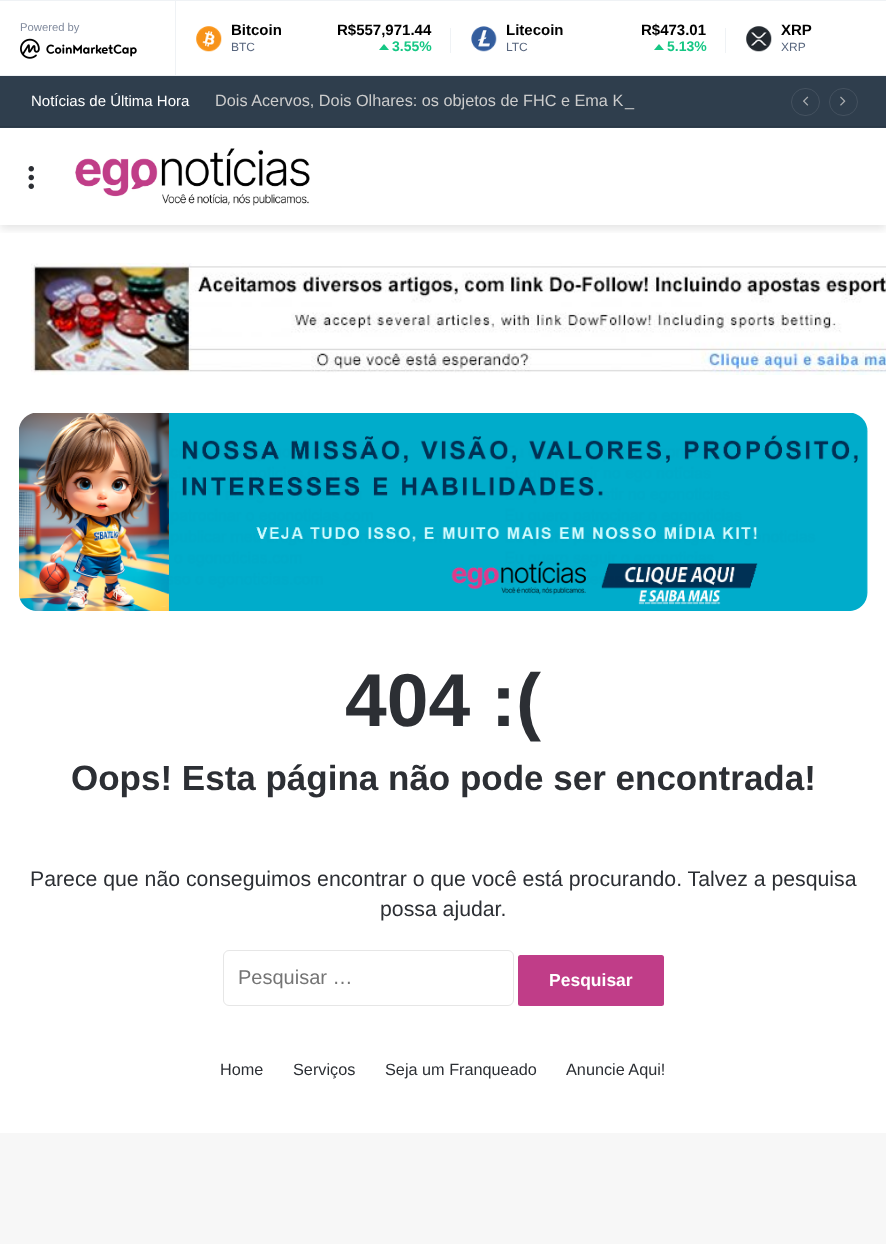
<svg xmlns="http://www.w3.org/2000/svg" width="886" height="1244">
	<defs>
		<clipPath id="clip1"><rect x="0" y="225" width="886" height="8" /></clipPath>
	</defs>
	<rect width="100%" height="100%" fill="#F7F7F7" />
	<rect x="0" y="1" width="886" height="1132" fill="#FFFFFF" />
	<rect x="0" y="0" width="886" height="1" fill="#EFF2F5" />
	<rect x="0" y="75" width="886" height="1" fill="#EFF2F5" />
	<rect x="175" y="1" width="1" height="74" fill="#EFF2F5" />
	<text x="20" y="31" font-family="Liberation Sans" font-size="11.25" fill="#808A9D">Powered by</text>
	<image x="20" y="38" width="117" height="21" href="assets/img1.png" />
	<image x="196" y="26" width="26" height="26" href="assets/img2.png" />
	<g font-family="Liberation Sans" font-size="15" font-weight="700" fill="#000000">
		<text x="231" y="35">Bitcoin</text>
		<text x="337" y="35">R$557,971.44</text>
	</g>
	<text x="231" y="51" font-family="Liberation Sans" font-size="12" fill="#58667E">BTC</text>
	<path d="M389 50H379L384 44Z" fill="#16C784" />
	<text x="392" y="51" font-family="Liberation Sans" font-size="14" font-weight="700" fill="#16C784">3.55%</text>
	<rect x="450" y="28" width="1" height="25" fill="#EFF2F5" />
	<image x="471" y="26" width="26" height="26" href="assets/img3.png" />
	<g font-family="Liberation Sans" font-size="15" font-weight="700" fill="#000000">
		<text x="506" y="35">Litecoin</text>
		<text x="641" y="35">R$473.01</text>
	</g>
	<text x="506" y="51" font-family="Liberation Sans" font-size="12" fill="#58667E">LTC</text>
	<path d="M664 50H654L659 44Z" fill="#16C784" />
	<text x="667" y="51" font-family="Liberation Sans" font-size="14" font-weight="700" fill="#16C784">5.13%</text>
	<rect x="725" y="28" width="1" height="25" fill="#EFF2F5" />
	<image x="746" y="26" width="26" height="26" href="assets/img4.png" />
	<text x="781" y="35" font-family="Liberation Sans" font-size="15" font-weight="700" fill="#000000">XRP</text>
	<text x="781" y="51" font-family="Liberation Sans" font-size="12" fill="#58667E">XRP</text>
	<g clip-path="url(#clip1)">
		<rect x="0" y="131" width="886" height="98" fill="#000000" fill-opacity="0.1" filter="blur(4.5px)" />
	</g>
	<rect x="0" y="76" width="886" height="52" fill="#2F3E4D" />
	<rect x="0" y="126" width="886" height="1" fill="#2A3845" />
	<text x="31" y="106" font-family="Liberation Sans" font-size="15" fill="#FFFFFF">Notícias de Última Hora</text>
	<g font-family="Liberation Sans" font-size="16.25" fill="#CCCCCC">
		<text x="215" y="106">Dois Acervos, Dois Olhares: os objetos de FHC e Ema K</text>
		<text x="625" y="106">_</text>
	</g>
	<rect x="791.5" y="88.5" width="28" height="27" rx="13.5" fill="none" stroke="#44515F" />
	<image x="803" y="96" width="6" height="10" href="assets/img5.png" />
	<rect x="829.5" y="88.5" width="28" height="27" rx="13.5" fill="none" stroke="#44515F" />
	<image x="840" y="96" width="6" height="10" href="assets/img6.png" />
	<image x="28" y="166" width="6" height="23" href="assets/img7.png" />
	<image x="75" y="148" width="235" height="58" href="assets/img8.png" />
	<image x="31" y="263" width="855" height="112" href="assets/img9.png" />
	<image x="19" y="413" width="849" height="198" href="assets/img10.png" />
	<text x="345" y="726" font-family="Liberation Sans" font-size="75" font-weight="700" fill="#2C2F34">404 :(</text>
	<text x="71" y="790" font-family="Liberation Sans" font-size="35" font-weight="700" fill="#2C2F34">Oops! Esta página não pode ser encontrada!</text>
	<g font-family="Liberation Sans" font-size="21.25" fill="#2C2F34">
		<text x="30" y="886">Parece que não conseguimos encontrar o que você está procurando. Talvez a pesquisa</text>
		<text x="380" y="916">possa ajudar.</text>
	</g>
	<rect x="223.5" y="950.5" width="290" height="55" rx="5.5" fill="none" stroke="#E6E6E6" />
	<text x="238" y="984" font-family="Liberation Sans" font-size="20" fill="#757575">Pesquisar …</text>
	<rect x="518" y="955" width="146" height="51" rx="2.5" fill="#C03D88" />
	<text x="549" y="986" font-family="Liberation Sans" font-size="17.5" font-weight="700" fill="#FFFFFF">Pesquisar</text>
	<g font-family="Liberation Sans" font-size="16.25" fill="#2C2F34">
		<text x="220" y="1075">Home</text>
		<text x="293" y="1075">Serviços</text>
		<text x="385" y="1075">Seja um Franqueado</text>
		<text x="566" y="1075">Anuncie Aqui!</text>
	</g>
</svg>
